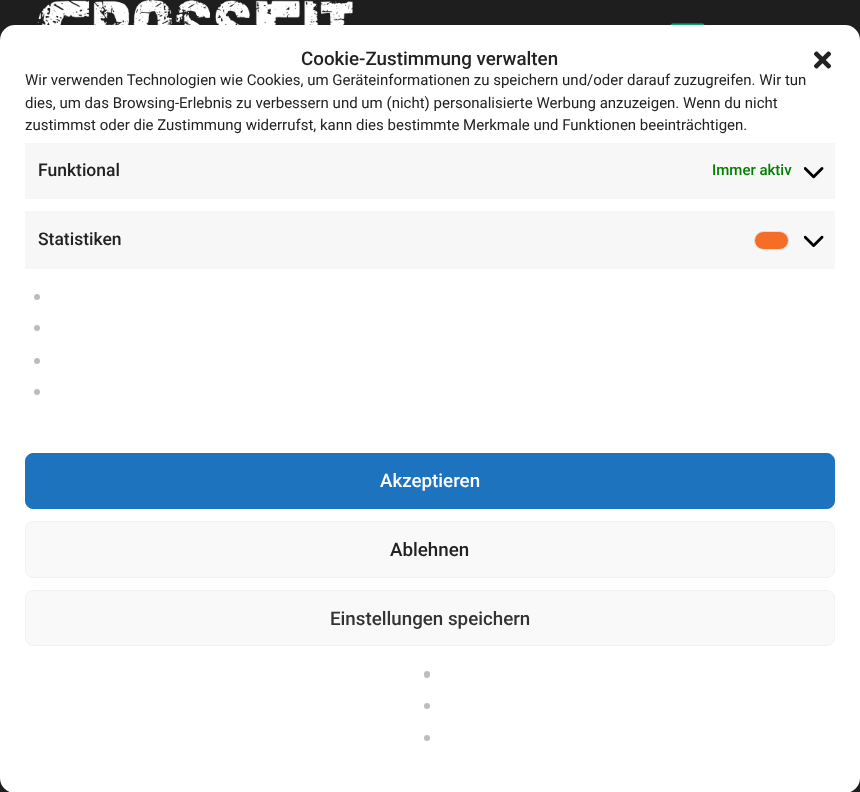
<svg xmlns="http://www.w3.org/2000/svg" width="860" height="792">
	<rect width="100%" height="100%" fill="#1E1E1E" />
	<image x="37" y="0" width="316" height="25" href="assets/img1.png" />
	<image x="670" y="23" width="35" height="2" href="assets/img2.png" />
	<rect x="0" y="25" width="860" height="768" rx="15" fill="#FFFFFF" />
	<text x="301" y="65" font-family="Roboto" font-size="18.75" font-weight="500" fill="#222222">Cookie-Zustimmung verwalten</text>
	<image x="813" y="51" width="19" height="18" href="assets/img3.png" />
	<g font-family="Roboto" font-size="15" fill="#222222">
		<text x="25" y="85">Wir verwenden Technologien wie Cookies, um Geräteinformationen zu speichern und/oder darauf zuzugreifen. Wir tun</text>
		<text x="25" y="108">dies, um das Browsing-Erlebnis zu verbessern und um (nicht) personalisierte Werbung anzuzeigen. Wenn du nicht</text>
		<text x="25" y="130">zustimmst oder die Zustimmung widerrufst, kann dies bestimmte Merkmale und Funktionen beeinträchtigen.</text>
	</g>
	<rect x="25" y="143" width="810" height="56" fill="#F7F7F7" />
	<text x="38" y="176" font-family="Roboto" font-size="17.5" font-weight="500" fill="#222222">Funktional</text>
	<text x="712" y="175" font-family="Roboto" font-size="15" font-weight="500" fill="#008000">Immer aktiv</text>
	<image x="804" y="167" width="20" height="12" href="assets/img4.png" />
	<rect x="25" y="211" width="810" height="58" fill="#F7F7F7" />
	<text x="38" y="245" font-family="Roboto" font-size="17.5" font-weight="500" fill="#222222">Statistiken</text>
	<rect x="754.5" y="231.5" width="34" height="18" rx="9" fill="#F56E28" stroke="#D9E2E6" />
	<image x="804" y="235" width="20" height="12" href="assets/img5.png" />
	<circle cx="37" cy="297" r="3" fill="#BEBCBC" />
	<circle cx="37" cy="328" r="3" fill="#BEBCBC" />
	<circle cx="37" cy="361" r="3" fill="#BEBCBC" />
	<circle cx="37" cy="392" r="3" fill="#BEBCBC" />
	<rect x="25.5" y="453.5" width="809" height="55" rx="7.5" fill="#1E73BE" stroke="#1E73BE" />
	<text x="380" y="487" font-family="Roboto" font-size="18.75" font-weight="500" fill="#FFFFFF">Akzeptieren</text>
	<rect x="25.5" y="521.5" width="809" height="56" rx="7.5" fill="#F9F9F9" stroke="#F2F2F2" />
	<text x="390" y="556" font-family="Roboto" font-size="18.75" font-weight="500" fill="#222222">Ablehnen</text>
	<rect x="25.5" y="590.5" width="809" height="55" rx="7.5" fill="#F9F9F9" stroke="#F2F2F2" />
	<text x="330" y="625" font-family="Roboto" font-size="18.75" font-weight="500" fill="#333333">Einstellungen speichern</text>
	<rect x="424" y="671" width="6" height="7" rx="3" fill="#BEBCBC" />
	<circle cx="427" cy="706" r="3" fill="#BEBCBC" />
	<circle cx="427" cy="738" r="3" fill="#BEBCBC" />
</svg>
